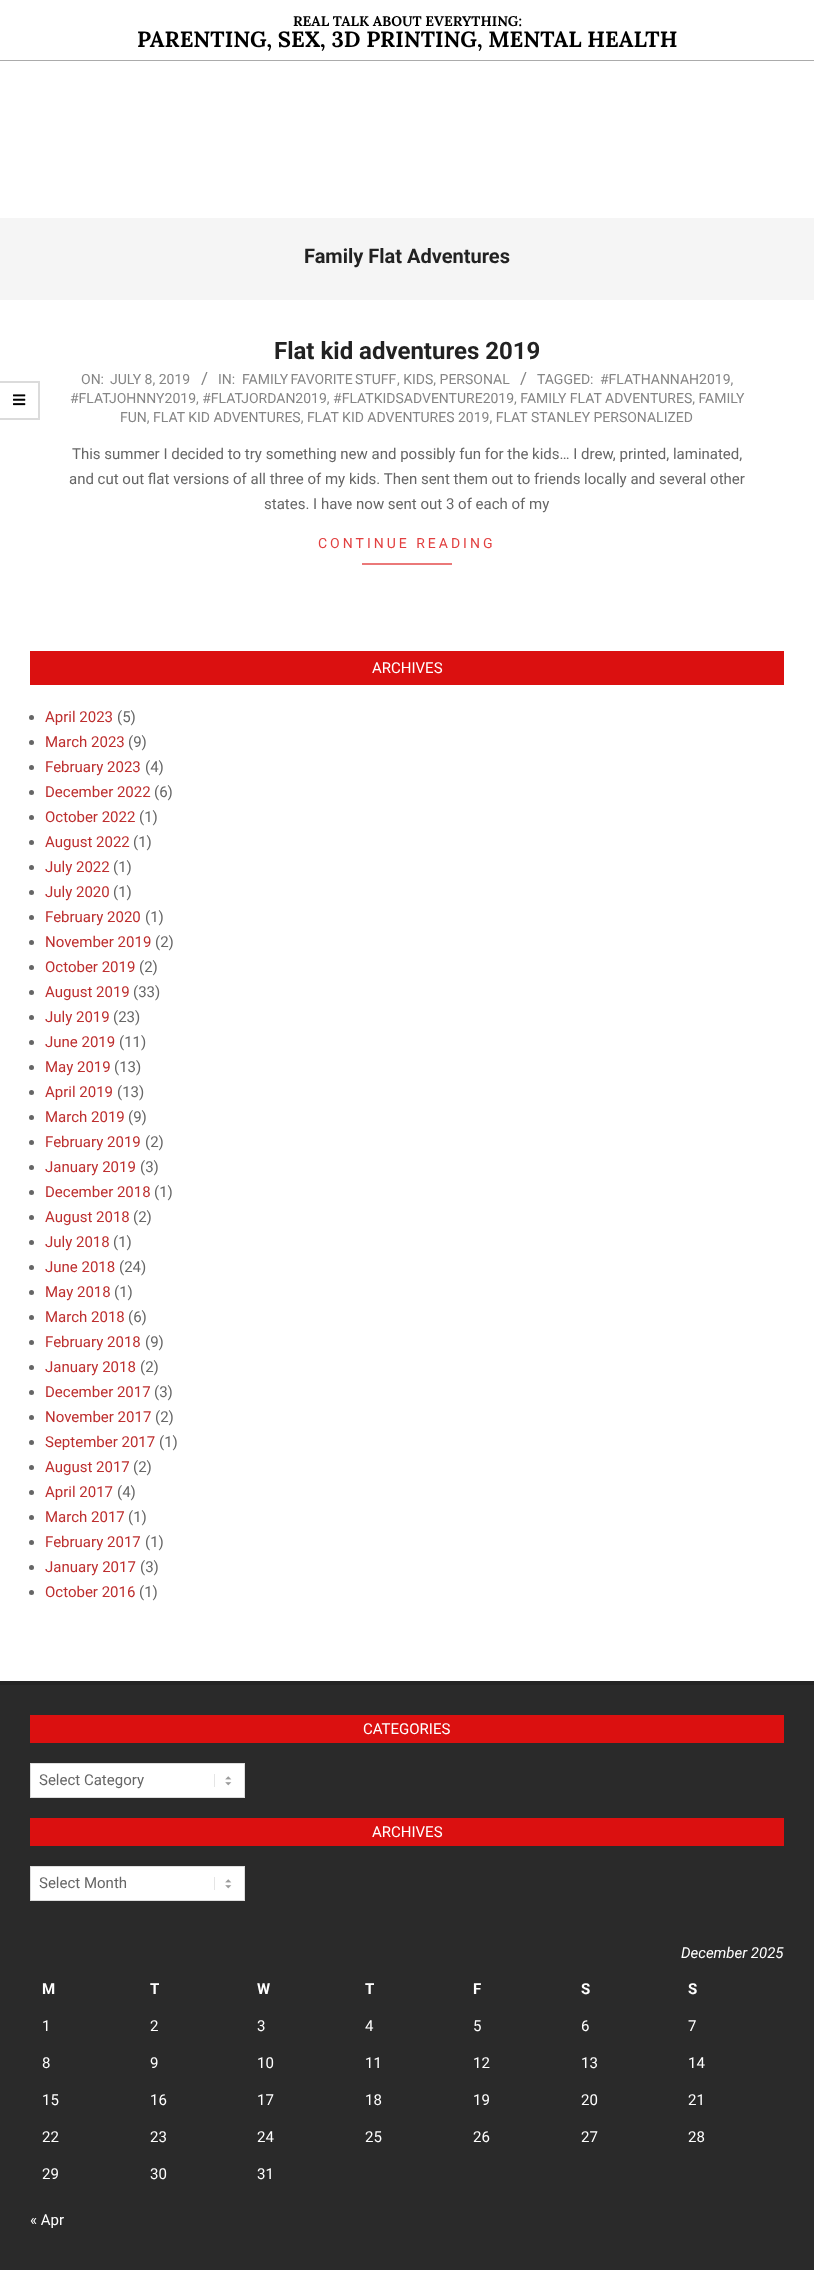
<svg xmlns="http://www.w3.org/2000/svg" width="814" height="2270">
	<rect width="100%" height="100%" fill="#FFFFFF" />
	<text x="293" y="26" font-family="Lora" font-size="14" font-weight="700" fill="#000000">REAL TALK ABOUT EVERYTHING:</text>
	<text x="137" y="47" font-family="Lora" font-size="22" font-weight="700" fill="#000000">PARENTING, SEX, 3D PRINTING, MENTAL HEALTH</text>
	<rect x="0" y="60" width="814" height="1" fill="#ABABAB" />
	<path d="M0 381H40L38 383H0Z" fill="#DBDBDB" />
	<path d="M40 381V420L38 418V383Z" fill="#000000" fill-opacity="0.14" />
	<path d="M40 420H0V418H38Z" fill="#000000" fill-opacity="0.14" />
	<image x="13" y="394" width="13" height="12" href="assets/img1.png" />
	<rect x="0" y="218" width="814" height="82" fill="#F5F5F5" />
	<text x="304" y="263" font-family="Roboto" font-size="20" font-weight="700" fill="#222222">Family Flat Adventures</text>
	<text x="274" y="359" font-family="Roboto" font-size="24" font-weight="700" fill="#222222">Flat kid adventures 2019</text>
	<g font-family="Roboto" font-size="14" fill="#858585">
		<text x="81" y="384">ON:</text>
		<text x="110" y="384">JULY 8, 2019</text>
	</g>
	<text x="201" y="384" font-family="Roboto" font-size="17" fill="#858585">/</text>
	<g font-family="Roboto" font-size="14" fill="#858585">
		<text x="218" y="384">IN:</text>
		<text x="242" y="384" word-spacing="-1">FAMILY FAVORITE STUFF</text>
		<text x="397" y="384">, KIDS, PERSONAL</text>
	</g>
	<text x="520" y="384" font-family="Roboto" font-size="17" fill="#858585">/</text>
	<g font-family="Roboto" font-size="14" fill="#858585">
		<text x="537" y="384">TAGGED:</text>
		<text x="600" y="384">#FLATHANNAH2019,</text>
		<text x="70" y="403">#FLATJOHNNY2019, #FLATJORDAN2019, #FLATKIDSADVENTURE2019, FAMILY FLAT ADVENTURES, FAMILY</text>
		<text x="120" y="422">FUN, FLAT KID ADVENTURES, FLAT KID ADVENTURES 2019, FLAT STANLEY PERSONALIZED</text>
	</g>
	<g font-family="Roboto" font-size="15" fill="#666666">
		<text x="72" y="459">This summer I decided to try something new and possibly fun for the kids… I drew, printed, laminated,</text>
		<text x="69" y="484">and cut out flat versions of all three of my kids. Then sent them out to friends locally and several other</text>
		<text x="264" y="509">states. I have now sent out 3 of each of my</text>
	</g>
	<text x="318" y="548" font-family="Roboto" font-size="14" letter-spacing="3" fill="#E24040">CONTINUE READING</text>
	<rect x="362" y="563" width="90" height="2" fill="#EB7979" />
	<rect x="30" y="651" width="754" height="34" fill="#DB1010" />
	<text x="372" y="673" font-family="Roboto" font-size="15" fill="#FFFFFF">ARCHIVES</text>
	<circle cx="31.5" cy="717.5" r="2.5" fill="#666666" />
	<text x="45" y="722" font-family="Roboto" font-size="15" fill="#BD2E2E">April 2023</text>
	<text x="117" y="722" font-family="Roboto" font-size="15" fill="#666666">(5)</text>
	<circle cx="31.5" cy="742.5" r="2.5" fill="#666666" />
	<text x="45" y="747" font-family="Roboto" font-size="15" fill="#BD2E2E">March 2023</text>
	<text x="128" y="747" font-family="Roboto" font-size="15" fill="#666666">(9)</text>
	<circle cx="31.5" cy="767.5" r="2.5" fill="#666666" />
	<text x="45" y="772" font-family="Roboto" font-size="15" fill="#BD2E2E">February 2023</text>
	<text x="145" y="772" font-family="Roboto" font-size="15" fill="#666666">(4)</text>
	<circle cx="31.5" cy="792.5" r="2.5" fill="#666666" />
	<text x="45" y="797" font-family="Roboto" font-size="15" fill="#BD2E2E">December 2022</text>
	<text x="154" y="797" font-family="Roboto" font-size="15" fill="#666666">(6)</text>
	<circle cx="31.5" cy="817.5" r="2.5" fill="#666666" />
	<text x="45" y="822" font-family="Roboto" font-size="15" fill="#BD2E2E">October 2022</text>
	<text x="139" y="822" font-family="Roboto" font-size="15" fill="#666666">(1)</text>
	<circle cx="31.5" cy="842.5" r="2.5" fill="#666666" />
	<text x="45" y="847" font-family="Roboto" font-size="15" fill="#BD2E2E">August 2022</text>
	<text x="133" y="847" font-family="Roboto" font-size="15" fill="#666666">(1)</text>
	<circle cx="31.5" cy="867.5" r="2.5" fill="#666666" />
	<text x="45" y="872" font-family="Roboto" font-size="15" fill="#BD2E2E">July 2022</text>
	<text x="113" y="872" font-family="Roboto" font-size="15" fill="#666666">(1)</text>
	<circle cx="31.5" cy="892.5" r="2.5" fill="#666666" />
	<text x="45" y="897" font-family="Roboto" font-size="15" fill="#BD2E2E">July 2020</text>
	<text x="113" y="897" font-family="Roboto" font-size="15" fill="#666666">(1)</text>
	<circle cx="31.5" cy="917.5" r="2.5" fill="#666666" />
	<text x="45" y="922" font-family="Roboto" font-size="15" fill="#BD2E2E">February 2020</text>
	<text x="145" y="922" font-family="Roboto" font-size="15" fill="#666666">(1)</text>
	<circle cx="31.5" cy="942.5" r="2.5" fill="#666666" />
	<text x="45" y="947" font-family="Roboto" font-size="15" fill="#BD2E2E">November 2019</text>
	<text x="155" y="947" font-family="Roboto" font-size="15" fill="#666666">(2)</text>
	<circle cx="31.5" cy="967.5" r="2.5" fill="#666666" />
	<text x="45" y="972" font-family="Roboto" font-size="15" fill="#BD2E2E">October 2019</text>
	<text x="139" y="972" font-family="Roboto" font-size="15" fill="#666666">(2)</text>
	<circle cx="31.5" cy="992.5" r="2.5" fill="#666666" />
	<text x="45" y="997" font-family="Roboto" font-size="15" fill="#BD2E2E">August 2019</text>
	<text x="133" y="997" font-family="Roboto" font-size="15" fill="#666666">(33)</text>
	<circle cx="31.5" cy="1017.5" r="2.5" fill="#666666" />
	<text x="45" y="1022" font-family="Roboto" font-size="15" fill="#BD2E2E">July 2019</text>
	<text x="113" y="1022" font-family="Roboto" font-size="15" fill="#666666">(23)</text>
	<circle cx="31.5" cy="1042.5" r="2.5" fill="#666666" />
	<text x="45" y="1047" font-family="Roboto" font-size="15" fill="#BD2E2E">June 2019</text>
	<text x="119" y="1047" font-family="Roboto" font-size="15" fill="#666666">(11)</text>
	<circle cx="31.5" cy="1067.5" r="2.5" fill="#666666" />
	<text x="45" y="1072" font-family="Roboto" font-size="15" fill="#BD2E2E">May 2019</text>
	<text x="114" y="1072" font-family="Roboto" font-size="15" fill="#666666">(13)</text>
	<circle cx="31.5" cy="1092.5" r="2.5" fill="#666666" />
	<text x="45" y="1097" font-family="Roboto" font-size="15" fill="#BD2E2E">April 2019</text>
	<text x="117" y="1097" font-family="Roboto" font-size="15" fill="#666666">(13)</text>
	<circle cx="31.5" cy="1117.5" r="2.5" fill="#666666" />
	<text x="45" y="1122" font-family="Roboto" font-size="15" fill="#BD2E2E">March 2019</text>
	<text x="128" y="1122" font-family="Roboto" font-size="15" fill="#666666">(9)</text>
	<circle cx="31.5" cy="1142.5" r="2.5" fill="#666666" />
	<text x="45" y="1147" font-family="Roboto" font-size="15" fill="#BD2E2E">February 2019</text>
	<text x="145" y="1147" font-family="Roboto" font-size="15" fill="#666666">(2)</text>
	<circle cx="31.5" cy="1167.5" r="2.5" fill="#666666" />
	<text x="45" y="1172" font-family="Roboto" font-size="15" fill="#BD2E2E">January 2019</text>
	<text x="140" y="1172" font-family="Roboto" font-size="15" fill="#666666">(3)</text>
	<circle cx="31.5" cy="1192.5" r="2.5" fill="#666666" />
	<text x="45" y="1197" font-family="Roboto" font-size="15" fill="#BD2E2E">December 2018</text>
	<text x="154" y="1197" font-family="Roboto" font-size="15" fill="#666666">(1)</text>
	<circle cx="31.5" cy="1217.5" r="2.5" fill="#666666" />
	<text x="45" y="1222" font-family="Roboto" font-size="15" fill="#BD2E2E">August 2018</text>
	<text x="133" y="1222" font-family="Roboto" font-size="15" fill="#666666">(2)</text>
	<circle cx="31.5" cy="1242.5" r="2.5" fill="#666666" />
	<text x="45" y="1247" font-family="Roboto" font-size="15" fill="#BD2E2E">July 2018</text>
	<text x="113" y="1247" font-family="Roboto" font-size="15" fill="#666666">(1)</text>
	<circle cx="31.5" cy="1267.5" r="2.5" fill="#666666" />
	<text x="45" y="1272" font-family="Roboto" font-size="15" fill="#BD2E2E">June 2018</text>
	<text x="119" y="1272" font-family="Roboto" font-size="15" fill="#666666">(24)</text>
	<circle cx="31.5" cy="1292.5" r="2.5" fill="#666666" />
	<text x="45" y="1297" font-family="Roboto" font-size="15" fill="#BD2E2E">May 2018</text>
	<text x="114" y="1297" font-family="Roboto" font-size="15" fill="#666666">(1)</text>
	<circle cx="31.5" cy="1317.5" r="2.5" fill="#666666" />
	<text x="45" y="1322" font-family="Roboto" font-size="15" fill="#BD2E2E">March 2018</text>
	<text x="128" y="1322" font-family="Roboto" font-size="15" fill="#666666">(6)</text>
	<circle cx="31.5" cy="1342.5" r="2.5" fill="#666666" />
	<text x="45" y="1347" font-family="Roboto" font-size="15" fill="#BD2E2E">February 2018</text>
	<text x="145" y="1347" font-family="Roboto" font-size="15" fill="#666666">(9)</text>
	<circle cx="31.5" cy="1367.5" r="2.5" fill="#666666" />
	<text x="45" y="1372" font-family="Roboto" font-size="15" fill="#BD2E2E">January 2018</text>
	<text x="140" y="1372" font-family="Roboto" font-size="15" fill="#666666">(2)</text>
	<circle cx="31.5" cy="1392.5" r="2.5" fill="#666666" />
	<text x="45" y="1397" font-family="Roboto" font-size="15" fill="#BD2E2E">December 2017</text>
	<text x="154" y="1397" font-family="Roboto" font-size="15" fill="#666666">(3)</text>
	<circle cx="31.5" cy="1417.5" r="2.5" fill="#666666" />
	<text x="45" y="1422" font-family="Roboto" font-size="15" fill="#BD2E2E">November 2017</text>
	<text x="155" y="1422" font-family="Roboto" font-size="15" fill="#666666">(2)</text>
	<circle cx="31.5" cy="1442.5" r="2.5" fill="#666666" />
	<text x="45" y="1447" font-family="Roboto" font-size="15" fill="#BD2E2E">September 2017</text>
	<text x="159" y="1447" font-family="Roboto" font-size="15" fill="#666666">(1)</text>
	<circle cx="31.5" cy="1467.5" r="2.5" fill="#666666" />
	<text x="45" y="1472" font-family="Roboto" font-size="15" fill="#BD2E2E">August 2017</text>
	<text x="133" y="1472" font-family="Roboto" font-size="15" fill="#666666">(2)</text>
	<circle cx="31.5" cy="1492.5" r="2.5" fill="#666666" />
	<text x="45" y="1497" font-family="Roboto" font-size="15" fill="#BD2E2E">April 2017</text>
	<text x="117" y="1497" font-family="Roboto" font-size="15" fill="#666666">(4)</text>
	<circle cx="31.5" cy="1517.5" r="2.5" fill="#666666" />
	<text x="45" y="1522" font-family="Roboto" font-size="15" fill="#BD2E2E">March 2017</text>
	<text x="128" y="1522" font-family="Roboto" font-size="15" fill="#666666">(1)</text>
	<circle cx="31.5" cy="1542.5" r="2.5" fill="#666666" />
	<text x="45" y="1547" font-family="Roboto" font-size="15" fill="#BD2E2E">February 2017</text>
	<text x="145" y="1547" font-family="Roboto" font-size="15" fill="#666666">(1)</text>
	<circle cx="31.5" cy="1567.5" r="2.5" fill="#666666" />
	<text x="45" y="1572" font-family="Roboto" font-size="15" fill="#BD2E2E">January 2017</text>
	<text x="140" y="1572" font-family="Roboto" font-size="15" fill="#666666">(3)</text>
	<circle cx="31.5" cy="1592.5" r="2.5" fill="#666666" />
	<text x="45" y="1597" font-family="Roboto" font-size="15" fill="#BD2E2E">October 2016</text>
	<text x="139" y="1597" font-family="Roboto" font-size="15" fill="#666666">(1)</text>
	<rect x="0" y="1685" width="814" height="585" fill="#2A2A2A" />
	<rect x="0" y="1681" width="814" height="4" fill="#242424" />
	<rect x="30" y="1715" width="754" height="28" fill="#DB1010" />
	<text x="363" y="1734" font-family="Roboto" font-size="15" fill="#FFFFFF">CATEGORIES</text>
	<rect x="31" y="1764" width="213" height="33" fill="#FFFFFF" />
	<image x="214" y="1774" width="18" height="13" href="assets/img2.png" />
	<rect x="30.5" y="1763.5" width="214" height="34" fill="none" stroke="#DDDDDD" />
	<text x="39" y="1785" font-family="Roboto" font-size="15" fill="#666666">Select Category</text>
	<rect x="30" y="1818" width="754" height="28" fill="#DB1010" />
	<text x="372" y="1837" font-family="Roboto" font-size="15" fill="#FFFFFF">ARCHIVES</text>
	<rect x="31" y="1867" width="213" height="33" fill="#FFFFFF" />
	<image x="214" y="1877" width="18" height="13" href="assets/img2.png" />
	<rect x="30.5" y="1866.5" width="214" height="34" fill="none" stroke="#DDDDDD" />
	<text x="39" y="1888" font-family="Roboto" font-size="15" fill="#666666">Select Month</text>
	<text x="681" y="1958" font-family="Roboto" font-size="15" font-style="italic" fill="#FFFFFF">December 2025</text>
	<g font-family="Roboto" font-size="15" font-weight="700" letter-spacing="2" fill="#FFFFFF">
		<text x="42" y="1994">M</text>
		<text x="150" y="1994">T</text>
		<text x="257" y="1994">W</text>
		<text x="365" y="1994">T</text>
		<text x="473" y="1994">F</text>
		<text x="581" y="1994">S</text>
		<text x="688" y="1994">S</text>
	</g>
	<g font-family="Roboto" font-size="15" fill="#FFFFFF">
		<text x="42" y="2031">1</text>
		<text x="150" y="2031">2</text>
		<text x="257" y="2031">3</text>
		<text x="365" y="2031">4</text>
		<text x="473" y="2031">5</text>
		<text x="581" y="2031">6</text>
		<text x="688" y="2031">7</text>
		<text x="42" y="2068">8</text>
		<text x="150" y="2068">9</text>
		<text x="257" y="2068">10</text>
		<text x="365" y="2068">11</text>
		<text x="473" y="2068">12</text>
		<text x="581" y="2068">13</text>
		<text x="688" y="2068">14</text>
		<text x="42" y="2105">15</text>
		<text x="150" y="2105">16</text>
		<text x="257" y="2105">17</text>
		<text x="365" y="2105">18</text>
		<text x="473" y="2105">19</text>
		<text x="581" y="2105">20</text>
		<text x="688" y="2105">21</text>
		<text x="42" y="2142">22</text>
		<text x="150" y="2142">23</text>
		<text x="257" y="2142">24</text>
		<text x="365" y="2142">25</text>
		<text x="473" y="2142">26</text>
		<text x="581" y="2142">27</text>
		<text x="688" y="2142">28</text>
		<text x="42" y="2179">29</text>
		<text x="150" y="2179">30</text>
		<text x="257" y="2179">31</text>
		<text x="30" y="2225">« Apr</text>
	</g>
</svg>
